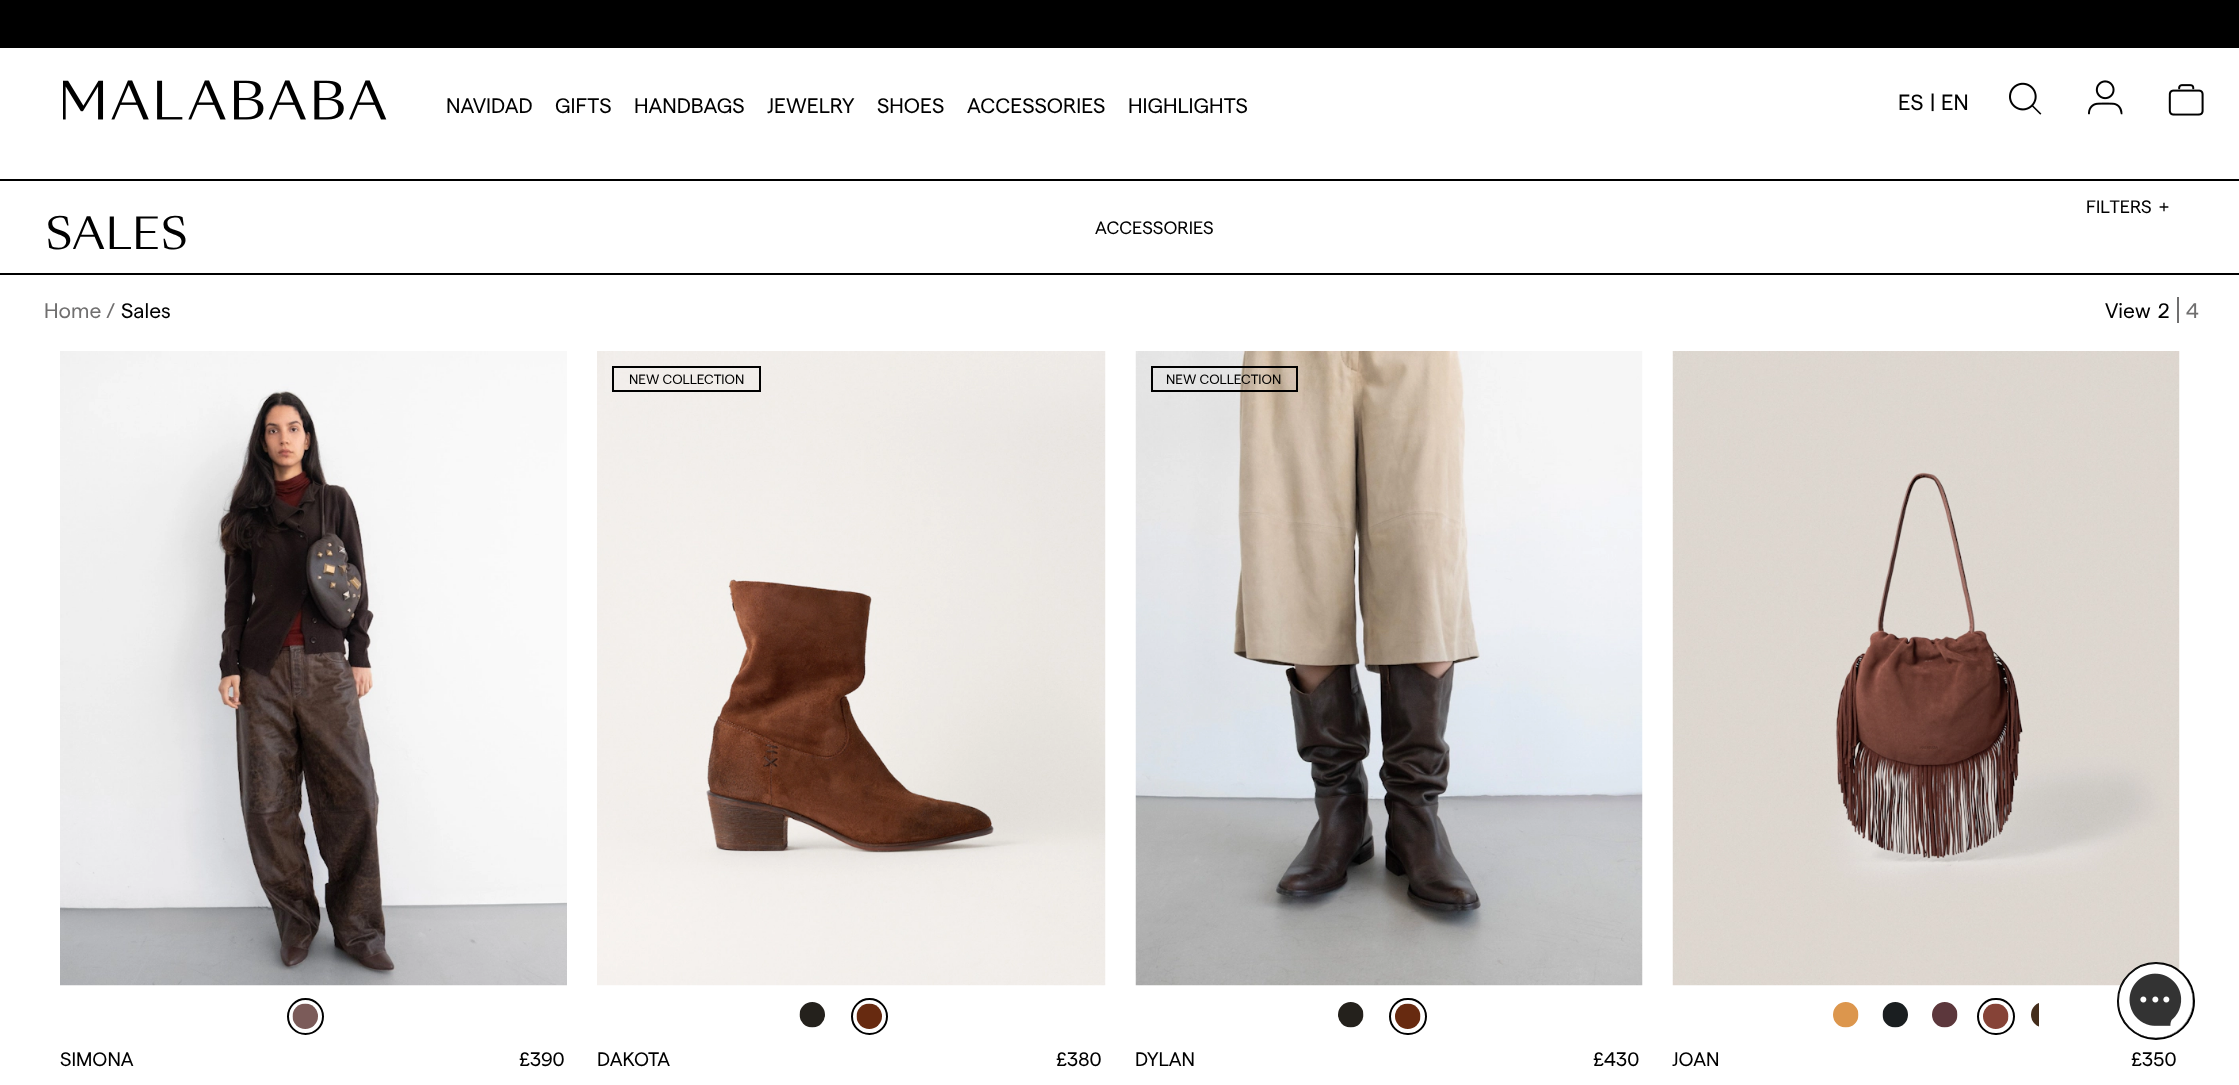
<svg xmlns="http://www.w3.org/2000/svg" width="2239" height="1085">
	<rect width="100%" height="100%" fill="#FFFFFF" />
	<rect x="0" y="0" width="2239" height="48" fill="#000000" />
	<image x="63" y="80" width="324" height="40" href="assets/img1.png" />
	<g font-family="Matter" font-size="21" fill="#000000">
		<text x="446" y="113">NAVIDAD</text>
		<text x="555" y="113">GIFTS</text>
		<text x="634" y="113">HANDBAGS</text>
		<text x="767" y="113">JEWELRY</text>
		<text x="877" y="113">SHOES</text>
		<text x="967" y="113">ACCESSORIES</text>
		<text x="1128" y="113">HIGHLIGHTS</text>
	</g>
	<g font-family="Matter" font-size="22" fill="#000000">
		<text x="1898" y="110">ES</text>
		<text x="1930" y="110">|</text>
		<text x="1941" y="110">EN</text>
	</g>
	<image x="2009" y="82" width="33" height="33" href="assets/img2.png" />
	<image x="2088" y="80" width="35" height="35" href="assets/img3.png" />
	<image x="2168" y="84" width="36" height="32" href="assets/img4.png" />
	<rect x="0" y="179" width="2239" height="2" fill="#000000" />
	<rect x="0" y="273" width="2239" height="2" fill="#000000" />
	<g font-family="Matter" font-size="18" fill="#000000">
		<text x="2086" y="213">FILTERS</text>
		<text x="2159" y="213">+</text>
	</g>
	<text x="45" y="249" font-family="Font" font-size="43" fill="#000000">SALES</text>
	<text x="1095" y="234" font-family="Matter" font-size="18" fill="#000000">ACCESSORIES</text>
	<text x="44" y="318" font-family="Matter" font-size="21" fill="#706F6F">Home /</text>
	<g font-family="Matter" font-size="21" fill="#000000">
		<text x="121" y="318">Sales</text>
		<text x="2105" y="318">View</text>
		<text x="2158" y="318">2</text>
	</g>
	<rect x="2177" y="297" width="2" height="26" fill="#706F6F" />
	<text x="2186" y="318" font-family="Matter" font-size="21" fill="#706F6F">4</text>
	<image x="60" y="351" width="507" height="635" href="assets/img5.png" />
	<circle cx="305.5" cy="1016.5" r="17.5" fill="none" stroke="#000000" stroke-width="2" />
	<image x="292" y="1003" width="26" height="26" href="assets/img6.png" />
	<g font-family="Matter" font-size="19.5" fill="#000000">
		<text x="60" y="1066">SIMONA</text>
		<text x="519" y="1066">£390</text>
	</g>
	<image x="597" y="351" width="509" height="635" href="assets/img7.png" />
	<rect x="613" y="367" width="147" height="24" fill="none" stroke="#000000" stroke-width="2" />
	<text x="629" y="384" font-family="Matter" font-size="13.5" fill="#000000">NEW COLLECTION</text>
	<image x="799" y="1002" width="26" height="26" href="assets/img8.png" />
	<circle cx="869.5" cy="1016.5" r="17.5" fill="none" stroke="#000000" stroke-width="2" />
	<image x="856" y="1003" width="26" height="26" href="assets/img9.png" />
	<g font-family="Matter" font-size="19.5" fill="#000000">
		<text x="597" y="1066">DAKOTA</text>
		<text x="1056" y="1066">£380</text>
	</g>
	<image x="1135" y="351" width="508" height="635" href="assets/img10.png" />
	<rect x="1152" y="367" width="145" height="24" fill="none" stroke="#000000" stroke-width="2" />
	<text x="1166" y="384" font-family="Matter" font-size="13.5" fill="#000000">NEW COLLECTION</text>
	<image x="1338" y="1002" width="26" height="26" href="assets/img11.png" />
	<rect x="1390" y="999" width="36" height="35" rx="17.5" fill="none" stroke="#000000" stroke-width="2" />
	<image x="1395" y="1003" width="26" height="26" href="assets/img12.png" />
	<g font-family="Matter" font-size="19.5" fill="#000000">
		<text x="1135" y="1066">DYLAN</text>
		<text x="1593" y="1066">£430</text>
	</g>
	<image x="1672" y="351" width="508" height="635" href="assets/img13.png" />
	<image x="1833" y="1002" width="26" height="26" href="assets/img14.png" />
	<image x="1882" y="1002" width="26" height="26" href="assets/img15.png" />
	<image x="1932" y="1002" width="26" height="26" href="assets/img16.png" />
	<rect x="1978" y="999" width="36" height="35" rx="17.5" fill="none" stroke="#000000" stroke-width="2" />
	<image x="1983" y="1003" width="26" height="26" href="assets/img17.png" />
	<image x="2031" y="1003" width="8" height="24" href="assets/img18.png" />
	<g font-family="Matter" font-size="19.5" fill="#000000">
		<text x="1672" y="1066">JOAN</text>
		<text x="2131" y="1066">£350</text>
	</g>
	<circle cx="2156" cy="1001" r="38" fill="#FFFFFF" stroke="#000000" stroke-width="2" />
	<image x="2118" y="963" width="75" height="76" href="assets/img19.png" />
</svg>
